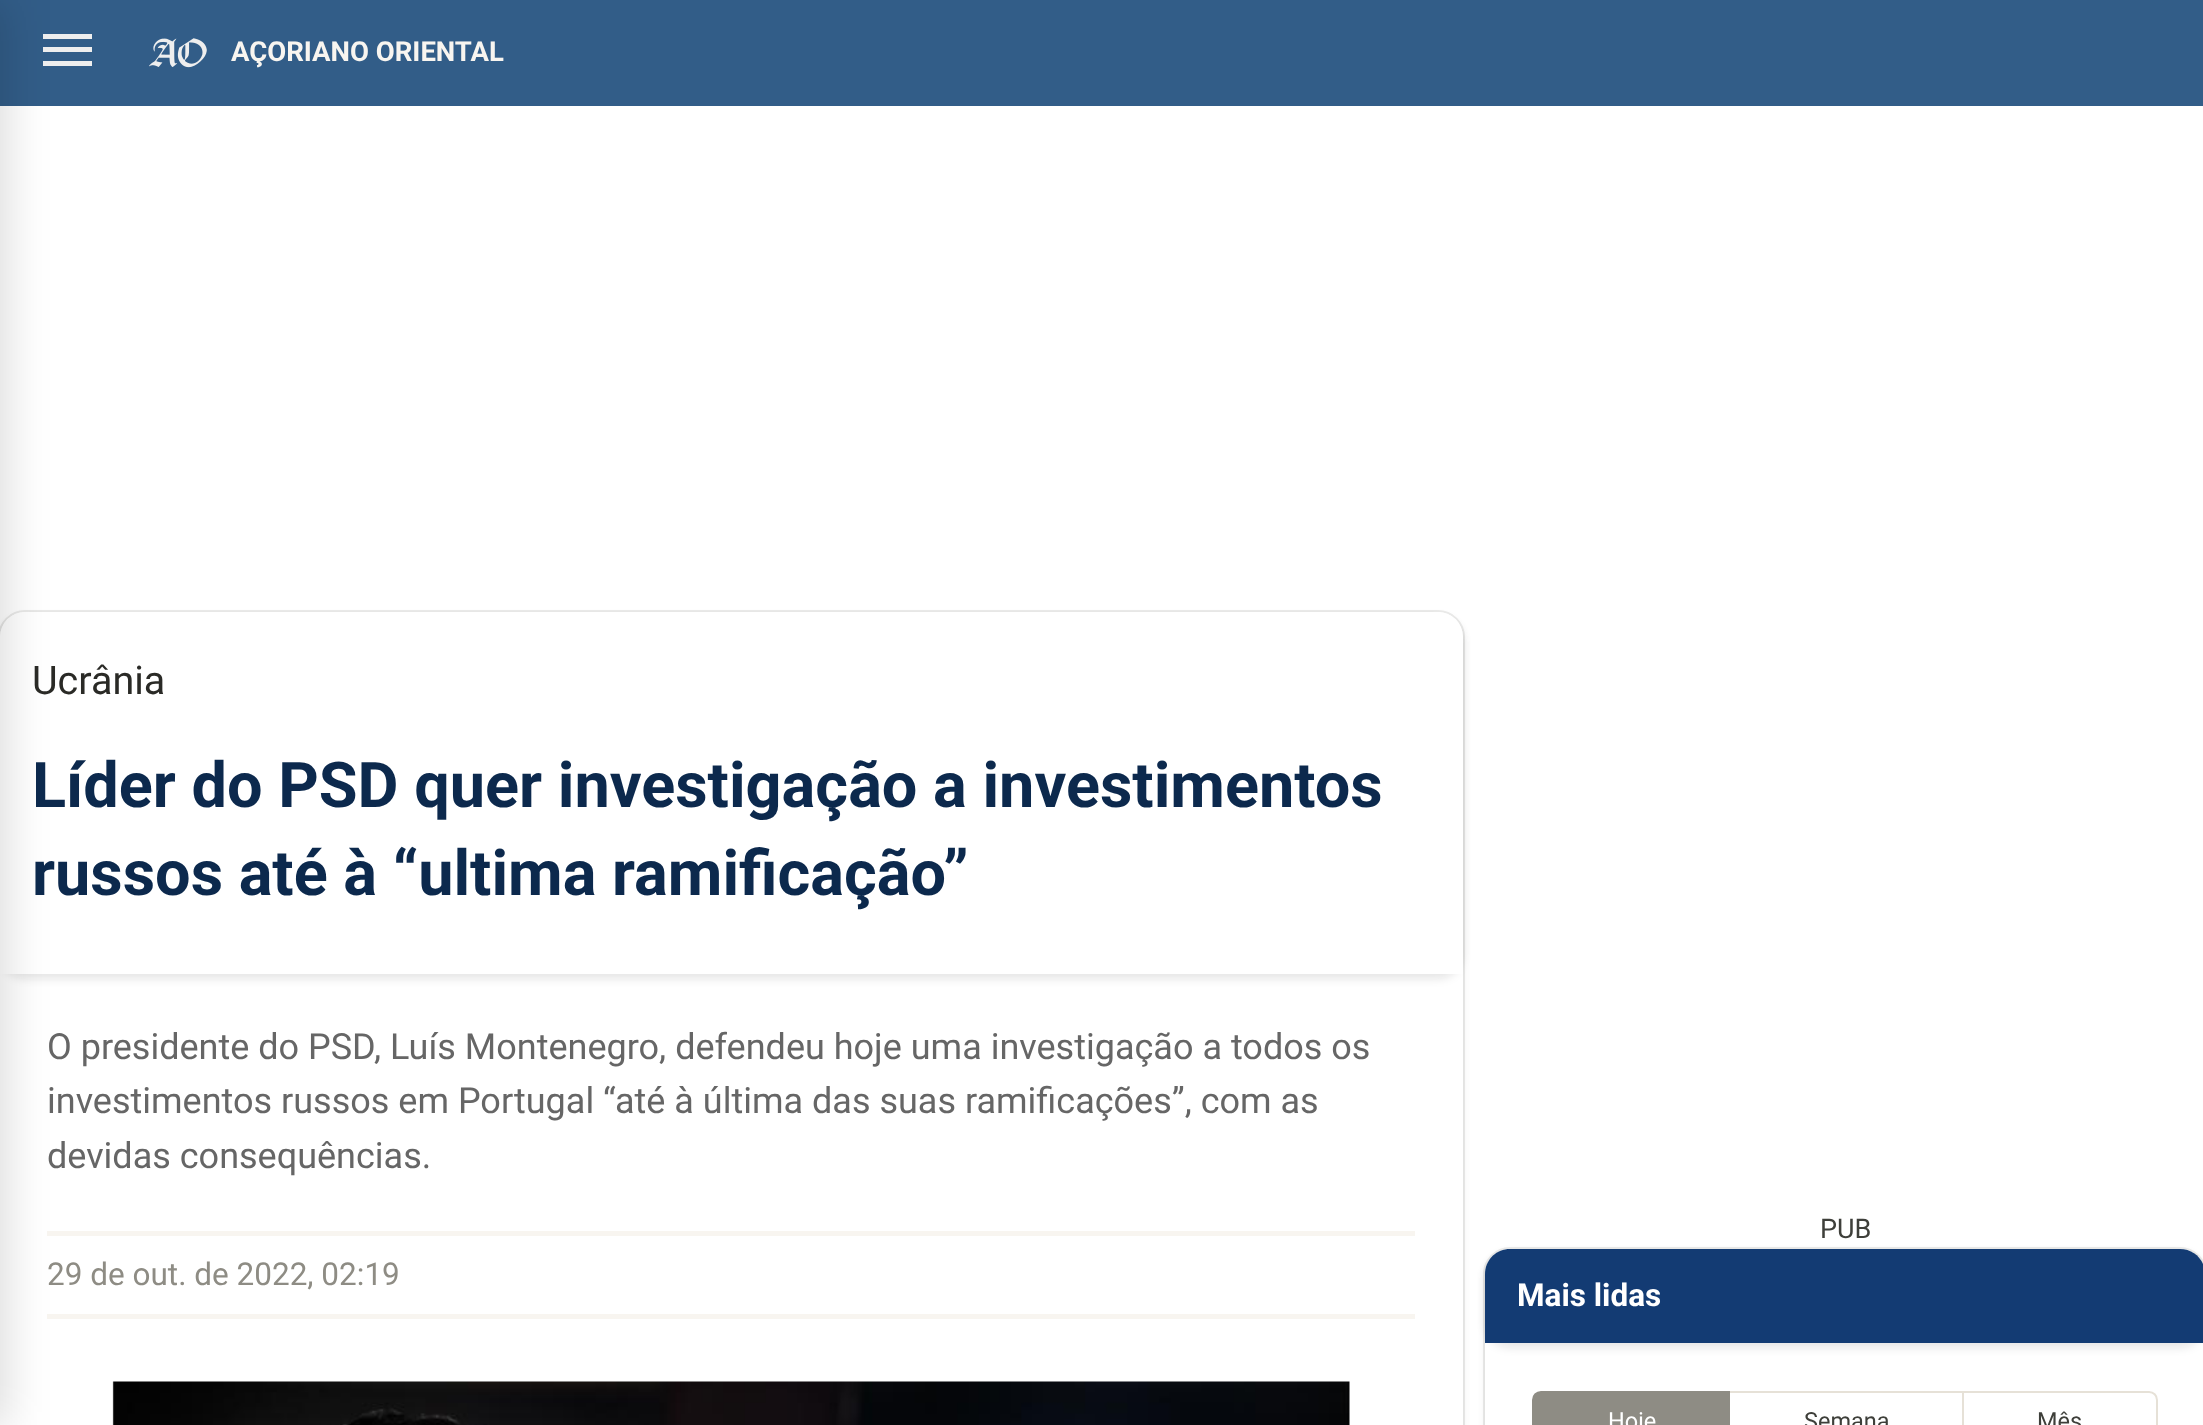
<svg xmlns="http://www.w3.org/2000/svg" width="2203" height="1425">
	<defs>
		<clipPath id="clip1"><path d="M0 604H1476V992H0ZM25 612H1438C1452 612 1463 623 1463 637V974H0V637C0 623 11 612 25 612Z" clip-rule="evenodd" /></clipPath>
	</defs>
	<rect width="100%" height="100%" fill="#FFFFFF" />
	<rect x="0" y="0" width="2203" height="106" fill="#325D88" />
	<rect x="43" y="34" width="49" height="5" fill="#EEEEEE" />
	<rect x="43" y="61" width="49" height="5" fill="#EEEEEE" />
	<rect x="43" y="47" width="49" height="5" fill="#EEEEEE" />
	<rect x="-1" y="611" width="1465" height="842" rx="26" fill="none" stroke="#ECECEB" stroke-width="2" />
	<rect x="0" y="617" width="1463" height="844" rx="25" fill="#3E3F3A" fill-opacity="0.1" filter="blur(3.5px)" />
	<rect x="0" y="612" width="1463" height="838" rx="25" fill="#FFFFFF" />
	<rect x="47" y="1231" width="1368" height="5" fill="#F8F5F0" />
	<rect x="47" y="1314" width="1368" height="5" fill="#F8F5F0" />
	<rect x="-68" y="0" width="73" height="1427" fill="#000000" fill-opacity="0.15" filter="blur(22.5px)" />
	<image x="149" y="38" width="58" height="30" href="assets/img1.png" />
	<text x="231" y="61" font-family="Roboto" font-size="27.5" font-weight="700" fill="#F8F5F0">AÇORIANO ORIENTAL</text>
	<g clip-path="url(#clip1)">
		<rect x="0" y="617" width="1463" height="362" rx="25" fill="#0A0A0A" fill-opacity="0.1" filter="blur(4px)" />
	</g>
	<text x="32" y="694" font-family="Roboto" font-size="39.5" fill="#2A2A26">Ucrânia</text>
	<g font-family="Roboto" font-size="63" font-weight="700" fill="#0C294D">
		<text x="32" y="807">Líder do PSD quer investigação a investimentos</text>
		<text x="32" y="895">russos até à “ultima ramificação”</text>
	</g>
	<g font-family="Roboto" font-size="36" fill="#666666">
		<text x="47" y="1059">O presidente do PSD, Luís Montenegro, defendeu hoje uma investigação a todos os</text>
		<text x="47" y="1113">investimentos russos em Portugal “até à última das suas ramificações”, com as</text>
		<text x="47" y="1168">devidas consequências.</text>
	</g>
	<text x="47" y="1285" font-family="Roboto" font-size="31.5" fill="#8E8C84">29 de out. de 2022, 02:19</text>
	<image x="112" y="1381" width="1238" height="44" href="assets/img2.png" />
	<text x="1820" y="1238" font-family="Roboto" font-size="27" fill="#3E3F3A">PUB</text>
	<rect x="1484" y="1248" width="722" height="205" rx="26" fill="none" stroke="#ECECEB" stroke-width="2" />
	<rect x="1485" y="1253" width="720" height="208" rx="25" fill="#3E3F3A" fill-opacity="0.1" filter="blur(3.5px)" />
	<rect x="1485" y="1249" width="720" height="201" rx="25" fill="#FFFFFF" />
	<rect x="1485" y="1253" width="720" height="95" rx="25" fill="#0A0A0A" fill-opacity="0.1" filter="blur(4px)" />
	<path d="M1510 1249H2180C2194 1249 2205 1260 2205 1274V1343H1485V1274C1485 1260 1496 1249 1510 1249Z" fill="#133B73" />
	<text x="1517" y="1306" font-family="Roboto" font-size="31.5" font-weight="700" fill="#FFFFFF">Mais lidas</text>
	<rect x="1729" y="1392" width="234" height="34" fill="none" stroke="#E6E1D7" stroke-width="2" />
	<path d="M1541 1392H1729V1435H1541C1536.5 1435 1533 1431.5 1533 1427V1400C1533 1395.5 1536.5 1392 1541 1392Z" fill="#8E8C84" stroke="#8E8C84" stroke-width="2" />
	<text x="1608" y="1429" font-family="Roboto" font-size="23.5" fill="#FFFFFF">Hoje</text>
	<text x="1804" y="1429" font-family="Roboto" font-size="23.5" fill="#3E3F3A">Semana</text>
	<path d="M1963 1392H2149C2153.5 1392 2157 1395.5 2157 1400V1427C2157 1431.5 2153.5 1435 2149 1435H1963Z" fill="none" stroke="#E6E1D7" stroke-width="2" />
	<text x="2037" y="1429" font-family="Roboto" font-size="23.5" fill="#3E3F3A">Mês</text>
</svg>
